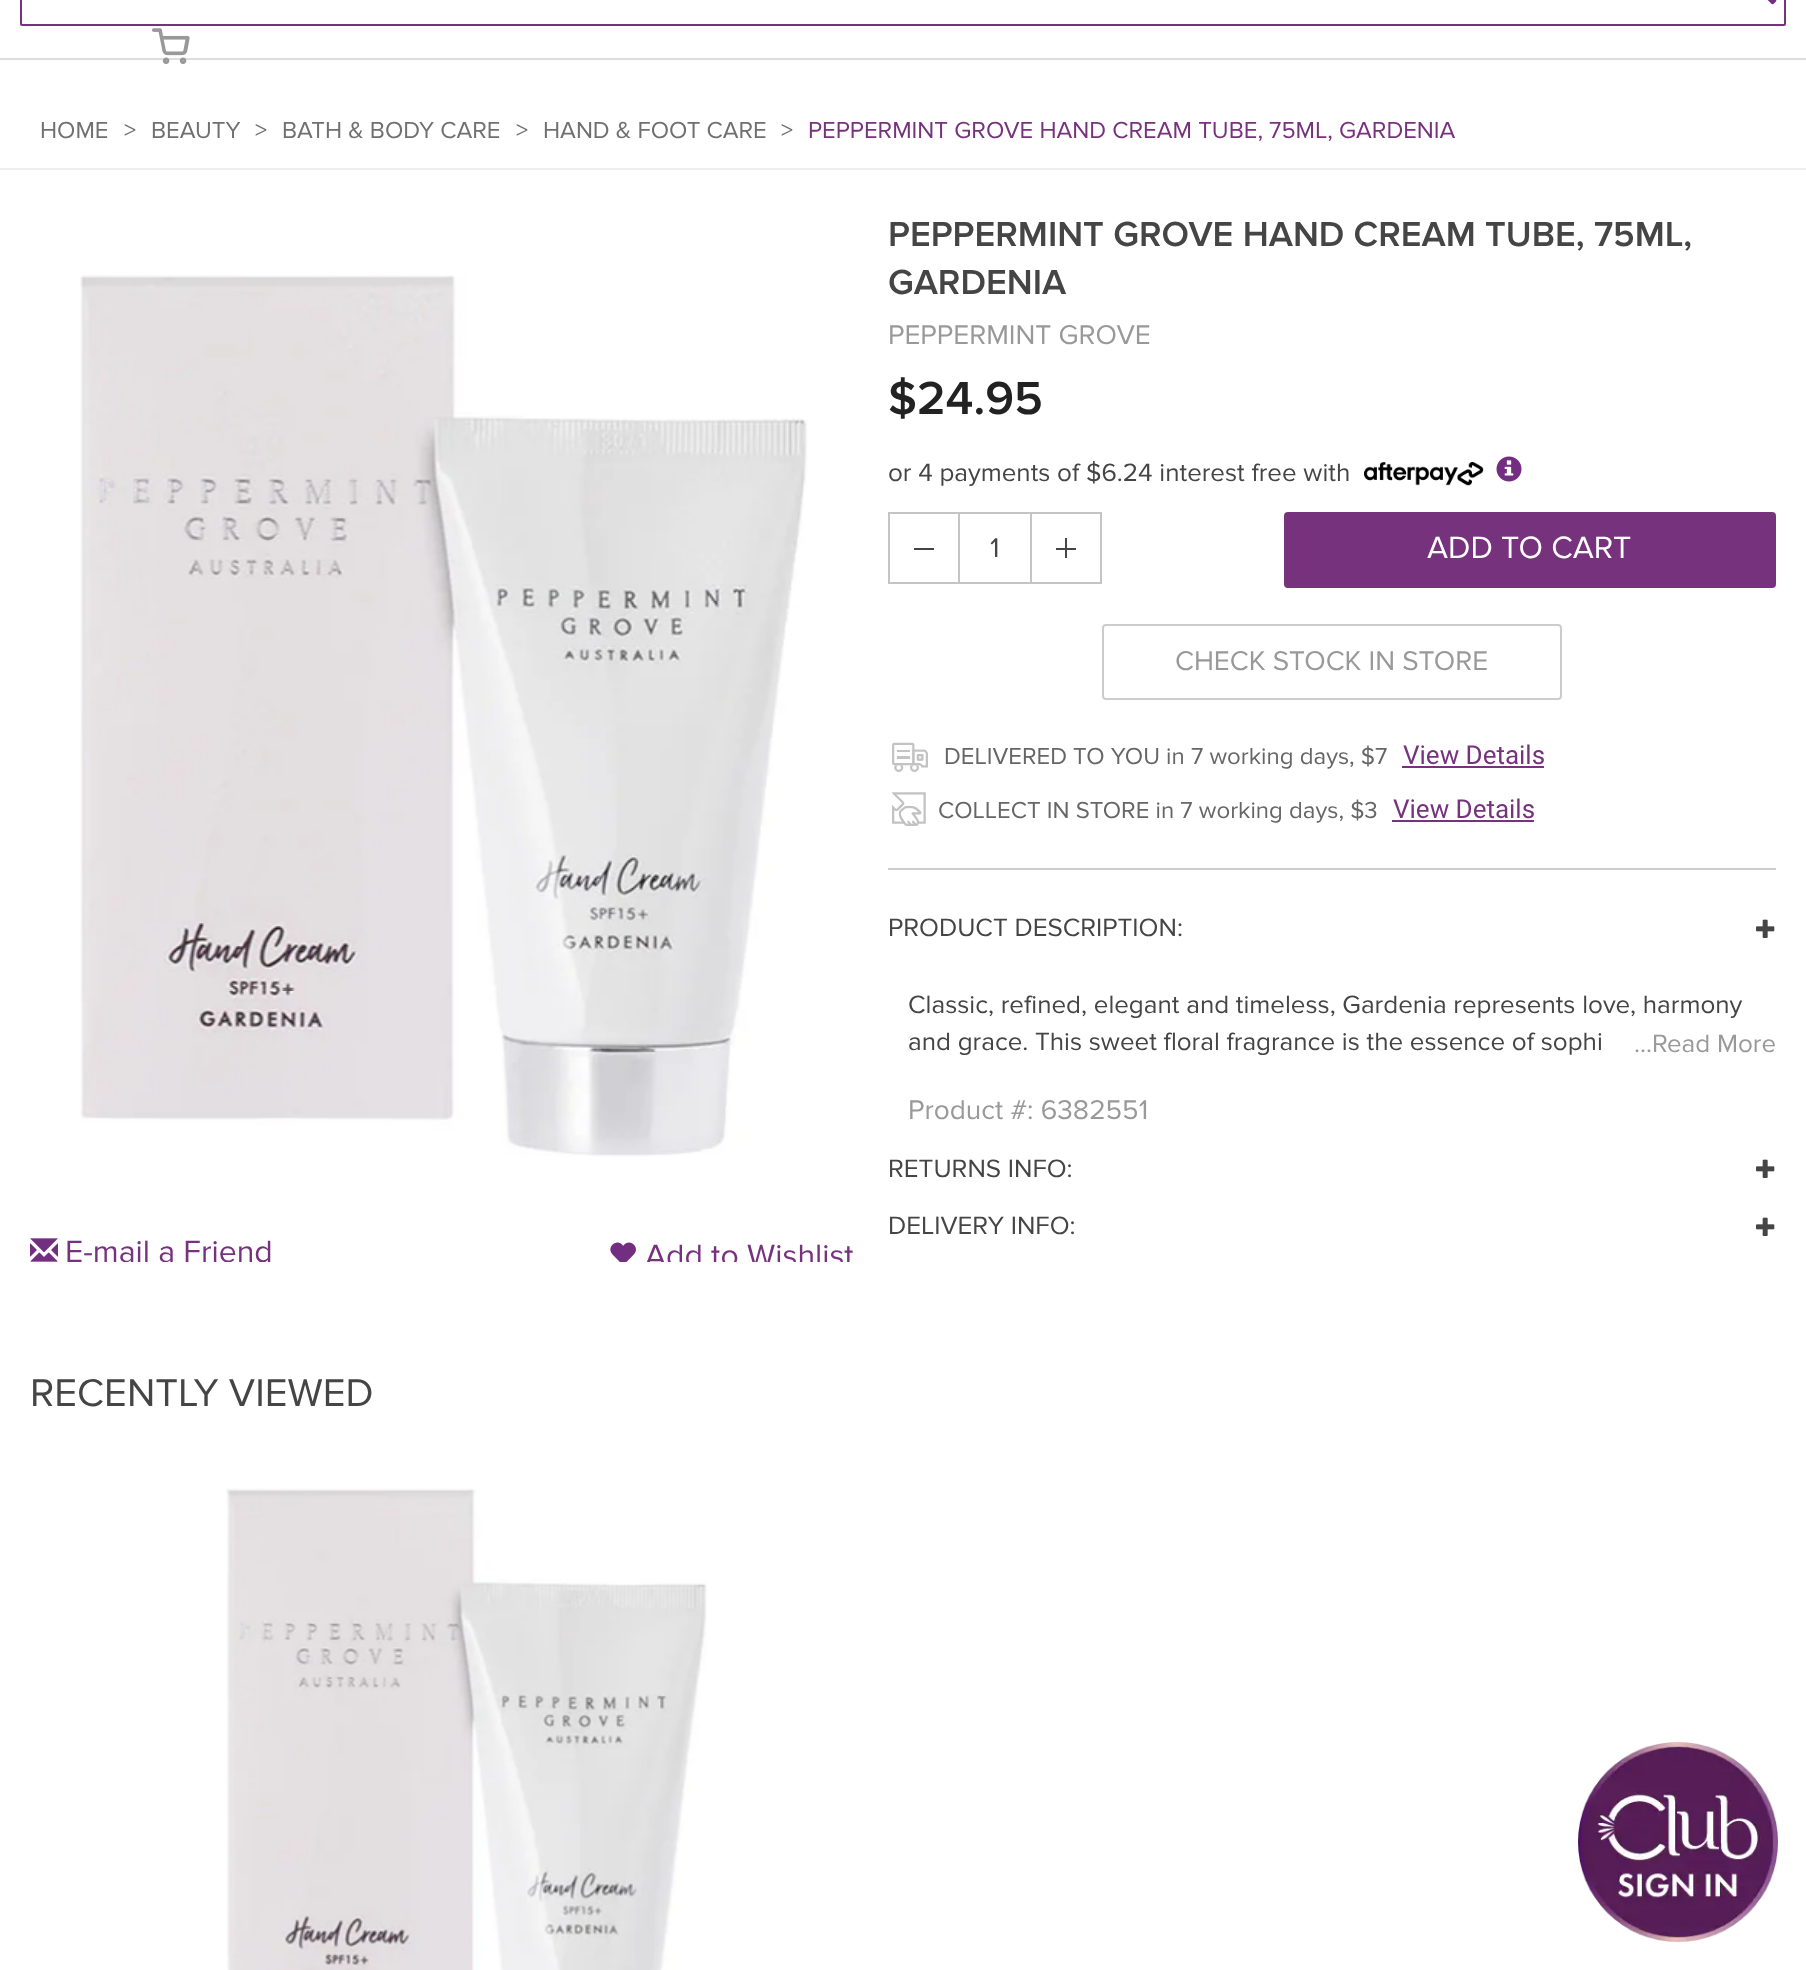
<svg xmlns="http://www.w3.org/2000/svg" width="1806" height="1970">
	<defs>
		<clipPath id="clip1"><rect x="30" y="1210" width="828" height="52" /></clipPath>
	</defs>
	<rect width="100%" height="100%" fill="#FFFFFF" />
	<rect x="21" y="-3" width="1764" height="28" rx="1" fill="none" stroke="#77327D" stroke-width="2" />
	<image x="1767" y="0" width="10" height="5" href="assets/img1.png" />
	<rect x="0" y="58" width="1806" height="2" fill="#DDDDDD" />
	<image x="152" y="28" width="38" height="36" href="assets/img2.png" />
	<rect x="0" y="168" width="1806" height="2" fill="#EEEEEE" />
	<g font-family="Proxima Nova" font-size="24" fill="#707070">
		<text x="40" y="138">HOME</text>
		<text x="124" y="138">&gt;</text>
		<text x="151" y="138">BEAUTY</text>
		<text x="255" y="138">&gt;</text>
		<text x="282" y="138">BATH &amp; BODY CARE</text>
		<text x="516" y="138">&gt;</text>
		<text x="543" y="138">HAND &amp; FOOT CARE</text>
		<text x="781" y="138">&gt;</text>
	</g>
	<text x="808" y="138" font-family="Proxima Nova" font-size="24" fill="#77327D">PEPPERMINT GROVE HAND CREAM TUBE, 75ML, GARDENIA</text>
	<g font-family="Proxima Nova" font-size="36" font-weight="600" fill="#454545">
		<text x="888" y="246">PEPPERMINT GROVE HAND CREAM TUBE, 75ML,</text>
		<text x="888" y="294">GARDENIA</text>
	</g>
	<text x="888" y="344" font-family="Proxima Nova" font-size="28" fill="#999999">PEPPERMINT GROVE</text>
	<text x="888" y="414" font-family="Proxima Nova" font-size="48" font-weight="600" fill="#222222">$24.95</text>
	<text x="888" y="481" font-family="Proxima Nova" font-size="26" fill="#454545">or 4 payments of $6.24 interest free with</text>
	<image x="1364" y="462" width="120" height="24" href="assets/img3.png" />
	<image x="1496" y="456" width="26" height="26" href="assets/img4.png" />
	<rect x="889" y="513" width="212" height="70" fill="none" stroke="#C4C4C4" stroke-width="2" />
	<rect x="914" y="548" width="20" height="2" fill="#454545" />
	<rect x="1030" y="514" width="2" height="68" fill="#C4C4C4" />
	<rect x="958" y="514" width="2" height="68" fill="#C4C4C4" />
	<text x="990" y="557" font-family="Proxima Nova" font-size="28" fill="#454545">1</text>
	<rect x="1056" y="548" width="20" height="2" fill="#454545" />
	<rect x="1065" y="538" width="2" height="20" fill="#454545" />
	<rect x="1285" y="513" width="490" height="74" rx="3" fill="#77327D" stroke="#77327D" stroke-width="2" />
	<text x="1427" y="558" font-family="Proxima Nova" font-size="32" fill="#FFFFFF">ADD TO CART</text>
	<rect x="1103" y="625" width="458" height="74" rx="3" fill="none" stroke="#CCCCCC" stroke-width="2" />
	<text x="1175" y="670" font-family="Proxima Nova" font-size="28" fill="#999999">CHECK STOCK IN STORE</text>
	<image x="892" y="742" width="36" height="30" href="assets/img5.png" />
	<text x="944" y="764" font-family="Proxima Nova" font-size="24" fill="#666666">DELIVERED TO YOU in 7 working days, $7</text>
	<text x="1403" y="764" font-family="Roboto" font-size="26" fill="#77327D">View Details</text>
	<rect x="1402" y="766" width="142" height="2" fill="#77327D" />
	<image x="892" y="792" width="34" height="34" href="assets/img6.png" />
	<text x="938" y="818" font-family="Proxima Nova" font-size="24" fill="#666666">COLLECT IN STORE in 7 working days, $3</text>
	<text x="1393" y="818" font-family="Roboto" font-size="26" fill="#77327D">View Details</text>
	<rect x="1392" y="820" width="142" height="2" fill="#77327D" />
	<rect x="888" y="868" width="888" height="2" fill="#CCCCCC" />
	<text x="888" y="936" font-family="Proxima Nova" font-size="26" fill="#454545">PRODUCT DESCRIPTION:</text>
	<image x="1756" y="919" width="19" height="19" href="assets/img7.png" />
	<g font-family="Proxima Nova" font-size="26" fill="#454545">
		<text x="908" y="1013">Classic, refined, elegant and timeless, Gardenia represents love, harmony</text>
		<text x="908" y="1050">and grace. This sweet floral fragrance is the essence of sophi</text>
	</g>
	<text x="1634" y="1052" font-family="Proxima Nova" font-size="26" fill="#999999">...Read More</text>
	<text x="908" y="1119" font-family="Proxima Nova" font-size="28" fill="#999999">Product #: 6382551</text>
	<text x="888" y="1177" font-family="Proxima Nova" font-size="26" fill="#454545">RETURNS INFO:</text>
	<image x="1756" y="1159" width="19" height="19" href="assets/img7.png" />
	<text x="888" y="1234" font-family="Proxima Nova" font-size="26" fill="#454545">DELIVERY INFO:</text>
	<image x="1756" y="1217" width="19" height="19" href="assets/img7.png" />
	<image x="80" y="275" width="728" height="882" href="assets/img8.png" />
	<image x="30" y="1238" width="28" height="24" href="assets/img9.png" />
	<g clip-path="url(#clip1)">
		<text x="65" y="1262" font-family="Proxima Nova" font-size="32" fill="#77327D">E-mail a Friend</text>
	</g>
	<image x="610" y="1242" width="26" height="20" href="assets/img10.png" />
	<g clip-path="url(#clip1)">
		<text x="645" y="1266" font-family="Proxima Nova" font-size="32" fill="#77327D">Add to Wishlist</text>
	</g>
	<text x="30" y="1406" font-family="Proxima Nova" font-size="40" fill="#454545">RECENTLY VIEWED</text>
	<image x="226" y="1488" width="481" height="482" href="assets/img11.png" />
	<image x="1578" y="1742" width="200" height="200" href="assets/img12.png" />
</svg>
